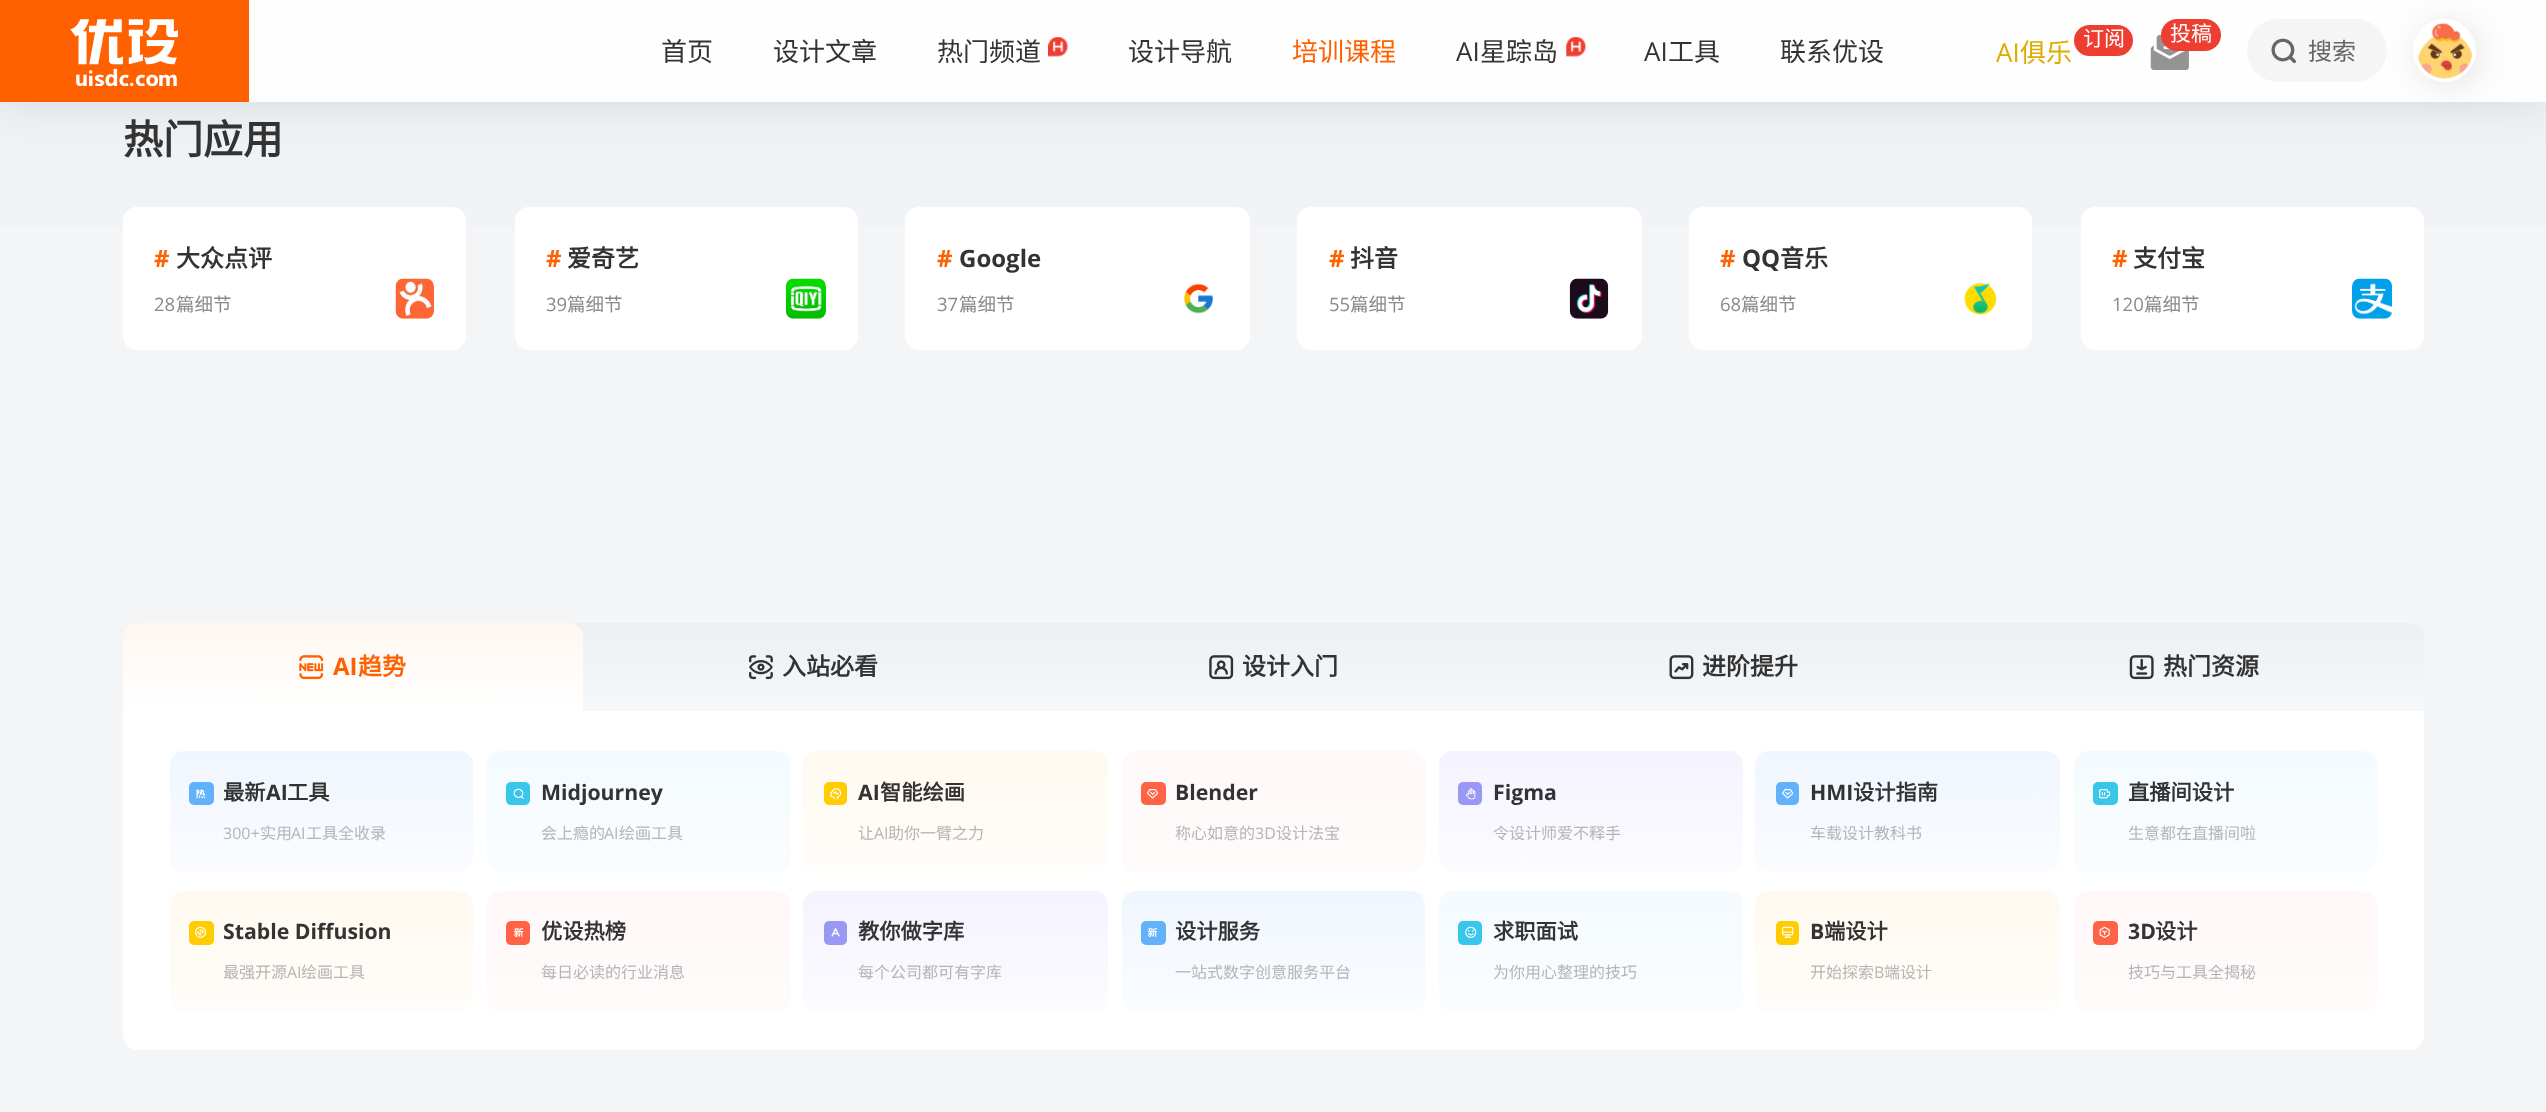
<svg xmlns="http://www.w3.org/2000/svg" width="2546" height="1112">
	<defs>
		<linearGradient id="g1" gradientUnits="userSpaceOnUse" x1="1273" y1="14" x2="1273" y2="438"><stop offset="0" stop-color="#EEF1F4" /><stop offset="1" stop-color="#F3F5F7" /></linearGradient>
		<clipPath id="clip1"><path d="M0 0H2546V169H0ZM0 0H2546V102H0Z" clip-rule="evenodd" /></clipPath>
		<linearGradient id="g2" gradientUnits="userSpaceOnUse" x1="1273" y1="623" x2="1273" y2="711"><stop offset="0" stop-color="#EDF0F3" /><stop offset="1" stop-color="#F5F8FA" /></linearGradient>
		<linearGradient id="g3" gradientUnits="userSpaceOnUse" x1="353" y1="623" x2="353" y2="711"><stop offset="0" stop-color="#FFF7F0" /><stop offset="1" stop-color="#FFFFFF" /></linearGradient>
		<linearGradient id="g4" gradientUnits="userSpaceOnUse" x1="321" y1="751" x2="321" y2="872"><stop offset="0" stop-color="#F0F6FF" /><stop offset="1" stop-color="#FAFCFF" /></linearGradient>
		<linearGradient id="g5" gradientUnits="userSpaceOnUse" x1="639" y1="751" x2="639" y2="872"><stop offset="0" stop-color="#F4FAFE" /><stop offset="1" stop-color="#FAFDFF" /></linearGradient>
		<linearGradient id="g6" gradientUnits="userSpaceOnUse" x1="956" y1="751" x2="956" y2="872"><stop offset="0" stop-color="#FFFAF0" /><stop offset="1" stop-color="#FFFDFA" /></linearGradient>
		<linearGradient id="g7" gradientUnits="userSpaceOnUse" x1="1273" y1="751" x2="1273" y2="872"><stop offset="0" stop-color="#FFF8F8" /><stop offset="1" stop-color="#FFFBFB" /></linearGradient>
		<linearGradient id="g8" gradientUnits="userSpaceOnUse" x1="1591" y1="751" x2="1591" y2="872"><stop offset="0" stop-color="#F5F3FF" /><stop offset="1" stop-color="#FCFBFF" /></linearGradient>
		<linearGradient id="g9" gradientUnits="userSpaceOnUse" x1="1908" y1="751" x2="1908" y2="872"><stop offset="0" stop-color="#F0F6FF" /><stop offset="1" stop-color="#FAFCFF" /></linearGradient>
		<linearGradient id="g10" gradientUnits="userSpaceOnUse" x1="2225" y1="751" x2="2225" y2="872"><stop offset="0" stop-color="#F4FAFE" /><stop offset="1" stop-color="#FAFDFF" /></linearGradient>
		<linearGradient id="g11" gradientUnits="userSpaceOnUse" x1="321" y1="891" x2="321" y2="1012"><stop offset="0" stop-color="#FFFAF0" /><stop offset="1" stop-color="#FFFDFA" /></linearGradient>
		<linearGradient id="g12" gradientUnits="userSpaceOnUse" x1="639" y1="891" x2="639" y2="1012"><stop offset="0" stop-color="#FFF8F8" /><stop offset="1" stop-color="#FFFBFB" /></linearGradient>
		<linearGradient id="g13" gradientUnits="userSpaceOnUse" x1="956" y1="891" x2="956" y2="1012"><stop offset="0" stop-color="#F5F3FF" /><stop offset="1" stop-color="#FCFBFF" /></linearGradient>
		<linearGradient id="g14" gradientUnits="userSpaceOnUse" x1="1273" y1="891" x2="1273" y2="1012"><stop offset="0" stop-color="#F0F6FF" /><stop offset="1" stop-color="#FAFCFF" /></linearGradient>
		<linearGradient id="g15" gradientUnits="userSpaceOnUse" x1="1591" y1="891" x2="1591" y2="1012"><stop offset="0" stop-color="#F4FAFE" /><stop offset="1" stop-color="#FAFDFF" /></linearGradient>
		<linearGradient id="g16" gradientUnits="userSpaceOnUse" x1="1908" y1="891" x2="1908" y2="1012"><stop offset="0" stop-color="#FFFAF0" /><stop offset="1" stop-color="#FFFDFA" /></linearGradient>
		<linearGradient id="g17" gradientUnits="userSpaceOnUse" x1="2225" y1="891" x2="2225" y2="1012"><stop offset="0" stop-color="#FFF8F8" /><stop offset="1" stop-color="#FFFBFB" /></linearGradient>
	</defs>
	<rect width="100%" height="100%" fill="#F3F5F7" />
	<rect x="0" y="14" width="2546" height="212" fill="url(#g1)" />
	<g clip-path="url(#clip1)">
		<rect x="0" y="0" width="2546" height="102" fill="#000000" fill-opacity="0.1" filter="blur(22px)" />
	</g>
	<rect x="249" y="0" width="2297" height="102" fill="#FFFFFF" fill-opacity="0.9" />
	<rect x="0" y="0" width="249" height="102" fill="#FF6000" />
	<image x="70" y="19" width="108" height="67" href="assets/img1.png" />
	<g font-family="Noto Sans CJK SC" font-size="26" fill="#333333">
		<text x="661" y="61">首页</text>
		<text x="773" y="61">设计文章</text>
		<text x="937" y="61">热门频道</text>
	</g>
	<image x="1048" y="37" width="21" height="20" href="assets/img2.png" />
	<text x="1128" y="61" font-family="Noto Sans CJK SC" font-size="26" fill="#333333">设计导航</text>
	<text x="1292" y="61" font-family="Noto Sans CJK SC" font-size="26" fill="#FF6000">培训课程</text>
	<text x="1456" y="61" font-family="Open Sans" font-size="26" fill="#333333">AI</text>
	<text x="1480" y="61" font-family="Noto Sans CJK SC" font-size="26" fill="#333333">星踪岛</text>
	<image x="1566" y="37" width="20" height="20" href="assets/img3.png" />
	<text x="1644" y="61" font-family="Open Sans" font-size="26" fill="#333333">AI</text>
	<g font-family="Noto Sans CJK SC" font-size="26" fill="#333333">
		<text x="1668" y="61">工具</text>
		<text x="1780" y="61">联系优设</text>
	</g>
	<rect x="2074" y="25" width="59" height="31" rx="15.5" fill="#EE3E31" />
	<text x="2083" y="46" font-family="Noto Sans CJK SC" font-size="21" fill="#FFFFFF">订阅</text>
	<text x="1996" y="62" font-family="Open Sans" font-size="26" fill="#DCAC00">AI</text>
	<text x="2020" y="62" font-family="Noto Sans CJK SC" font-size="26" fill="#DCAC00">俱乐</text>
	<image x="2150" y="35" width="39" height="35" href="assets/img4.png" />
	<rect x="2161" y="19" width="60" height="32" rx="16" fill="#EE3E31" />
	<text x="2170" y="41" font-family="Noto Sans CJK SC" font-size="21" fill="#FFFFFF">投稿</text>
	<rect x="2247" y="19" width="140" height="63" rx="31.5" fill="#F5F5F5" />
	<image x="2271" y="38" width="25" height="26" href="assets/img5.png" />
	<text x="2308" y="60" font-family="Noto Sans CJK SC" font-size="24" fill="#666666">搜索</text>
	<rect x="2417" y="23" width="63" height="63" rx="31.5" fill="#000000" fill-opacity="0.1" filter="blur(16px)" />
	<circle cx="2444.5" cy="50.5" r="29.5" fill="#FFFFFF" stroke="#FFFFFF" stroke-width="4" />
	<image x="2417" y="23" width="56" height="56" href="assets/img6.png" />
	<text x="123" y="154" font-family="Noto Sans CJK SC" font-size="40" font-weight="700" fill="#333333">热门应用</text>
	<rect x="123" y="207" width="343" height="143" rx="14" fill="#FFFFFF" />
	<text x="154" y="267" font-family="Open Sans" font-size="24" font-weight="700" fill="#FF6000">#</text>
	<text x="176" y="267" font-family="Noto Sans CJK SC" font-size="24" font-weight="700" fill="#333333">大众点评</text>
	<text x="154" y="311" font-family="Open Sans" font-size="18.5" fill="#8A8A8A">28</text>
	<text x="176" y="311" font-family="Noto Sans CJK SC" font-size="18.5" fill="#8A8A8A">篇细节</text>
	<image x="395" y="278" width="39" height="41" href="assets/img7.png" />
	<rect x="515" y="207" width="343" height="143" rx="14" fill="#FFFFFF" />
	<text x="546" y="267" font-family="Open Sans" font-size="24" font-weight="700" fill="#FF6000">#</text>
	<text x="567" y="267" font-family="Noto Sans CJK SC" font-size="24" font-weight="700" fill="#333333">爱奇艺</text>
	<text x="546" y="311" font-family="Open Sans" font-size="18.5" fill="#8A8A8A">39</text>
	<text x="567" y="311" font-family="Noto Sans CJK SC" font-size="18.5" fill="#8A8A8A">篇细节</text>
	<image x="785" y="278" width="41" height="41" href="assets/img8.png" />
	<rect x="905" y="207" width="345" height="143" rx="14" fill="#FFFFFF" />
	<text x="937" y="267" font-family="Open Sans" font-size="24" font-weight="700" fill="#FF6000">#</text>
	<text x="959" y="267" font-family="Open Sans" font-size="24" font-weight="700" fill="#333333">Google</text>
	<text x="937" y="311" font-family="Open Sans" font-size="18.5" fill="#8A8A8A">37</text>
	<text x="959" y="311" font-family="Noto Sans CJK SC" font-size="18.5" fill="#8A8A8A">篇细节</text>
	<image x="1183" y="283" width="31" height="31" href="assets/img9.png" />
	<rect x="1297" y="207" width="345" height="143" rx="14" fill="#FFFFFF" />
	<text x="1329" y="267" font-family="Open Sans" font-size="24" font-weight="700" fill="#FF6000">#</text>
	<text x="1350" y="267" font-family="Noto Sans CJK SC" font-size="24" font-weight="700" fill="#333333">抖音</text>
	<text x="1329" y="311" font-family="Open Sans" font-size="18.5" fill="#8A8A8A">55</text>
	<text x="1350" y="311" font-family="Noto Sans CJK SC" font-size="18.5" fill="#8A8A8A">篇细节</text>
	<image x="1569" y="278" width="40" height="41" href="assets/img10.png" />
	<rect x="1689" y="207" width="343" height="143" rx="14" fill="#FFFFFF" />
	<text x="1720" y="267" font-family="Open Sans" font-size="24" font-weight="700" fill="#FF6000">#</text>
	<text x="1742" y="267" font-family="Open Sans" font-size="24" font-weight="700" fill="#333333">QQ</text>
	<text x="1780" y="267" font-family="Noto Sans CJK SC" font-size="24" font-weight="700" fill="#333333">音乐</text>
	<text x="1720" y="311" font-family="Open Sans" font-size="18.5" fill="#8A8A8A">68</text>
	<text x="1741" y="311" font-family="Noto Sans CJK SC" font-size="18.5" fill="#8A8A8A">篇细节</text>
	<image x="1964" y="282" width="33" height="34" href="assets/img11.png" />
	<rect x="2081" y="207" width="343" height="143" rx="14" fill="#FFFFFF" />
	<text x="2112" y="267" font-family="Open Sans" font-size="24" font-weight="700" fill="#FF6000">#</text>
	<text x="2133" y="267" font-family="Noto Sans CJK SC" font-size="24" font-weight="700" fill="#333333">支付宝</text>
	<text x="2112" y="311" font-family="Open Sans" font-size="18.5" fill="#8A8A8A">120</text>
	<text x="2144" y="311" font-family="Noto Sans CJK SC" font-size="18.5" fill="#8A8A8A">篇细节</text>
	<image x="2352" y="278" width="41" height="41" href="assets/img12.png" />
	<path d="M137 623H2410C2417.5 623 2424 629.5 2424 637V711H123V637C123 629.5 129.5 623 137 623Z" fill="url(#g2)" />
	<path d="M137 623H569C576.5 623 583 629.5 583 637V711H123V637C123 629.5 129.5 623 137 623Z" fill="url(#g3)" />
	<image x="299" y="655" width="25" height="25" href="assets/img13.png" />
	<text x="333" y="675" font-family="Open Sans" font-size="24" font-weight="700" fill="#FF6000">AI</text>
	<text x="358" y="675" font-family="Noto Sans CJK SC" font-size="24" font-weight="700" fill="#FF6000">趋势</text>
	<image x="749" y="655" width="24" height="25" href="assets/img14.png" />
	<text x="782" y="675" font-family="Noto Sans CJK SC" font-size="24" font-weight="700" fill="#333333">入站必看</text>
	<image x="1209" y="655" width="25" height="25" href="assets/img15.png" />
	<text x="1242" y="675" font-family="Noto Sans CJK SC" font-size="24" font-weight="700" fill="#333333">设计入门</text>
	<image x="1669" y="655" width="25" height="25" href="assets/img16.png" />
	<text x="1702" y="675" font-family="Noto Sans CJK SC" font-size="24" font-weight="700" fill="#333333">进阶提升</text>
	<image x="2129" y="655" width="25" height="25" href="assets/img17.png" />
	<text x="2163" y="675" font-family="Noto Sans CJK SC" font-size="24" font-weight="700" fill="#333333">热门资源</text>
	<path d="M123 711H2424V1036C2424 1043.5 2417.5 1050 2410 1050H137C129.5 1050 123 1043.5 123 1036Z" fill="#FFFFFF" />
	<rect x="170" y="751" width="303" height="121" rx="14" fill="url(#g4)" />
	<rect x="189" y="782" width="25" height="23" rx="5" fill="#61B1FB" />
	<image x="196" y="789" width="10" height="10" href="assets/img18.png" />
	<text x="223" y="800" font-family="Noto Sans CJK SC" font-size="21.25" font-weight="700" fill="#333333">最新</text>
	<text x="266" y="800" font-family="Open Sans" font-size="21.25" font-weight="700" fill="#333333">AI</text>
	<text x="287" y="800" font-family="Noto Sans CJK SC" font-size="21.25" font-weight="700" fill="#333333">工具</text>
	<text x="223" y="839" font-family="Open Sans" font-size="16" fill="#B5B5B5">300+</text>
	<text x="260" y="839" font-family="Noto Sans CJK SC" font-size="16" fill="#B5B5B5">实用</text>
	<text x="291" y="839" font-family="Open Sans" font-size="16" fill="#B5B5B5">AI</text>
	<text x="306" y="839" font-family="Noto Sans CJK SC" font-size="16" fill="#B5B5B5">工具全收录</text>
	<rect x="487" y="751" width="304" height="121" rx="14" fill="url(#g5)" />
	<rect x="506" y="782" width="24" height="23" rx="5" fill="#38C6EA" />
	<image x="513" y="788" width="11" height="11" href="assets/img19.png" />
	<text x="541" y="800" font-family="Open Sans" font-size="21.25" font-weight="700" fill="#333333">Midjourney</text>
	<text x="541" y="839" font-family="Noto Sans CJK SC" font-size="16" fill="#B5B5B5">会上瘾的</text>
	<text x="604" y="839" font-family="Open Sans" font-size="16" fill="#B5B5B5">AI</text>
	<text x="619" y="839" font-family="Noto Sans CJK SC" font-size="16" fill="#B5B5B5">绘画工具</text>
	<rect x="803" y="751" width="305" height="121" rx="14" fill="url(#g6)" />
	<rect x="824" y="782" width="23" height="23" rx="5" fill="#FFCC01" />
	<image x="830" y="788" width="12" height="12" href="assets/img20.png" />
	<text x="858" y="800" font-family="Open Sans" font-size="21.25" font-weight="700" fill="#333333">AI</text>
	<text x="880" y="800" font-family="Noto Sans CJK SC" font-size="21.25" font-weight="700" fill="#333333">智能绘画</text>
	<text x="858" y="839" font-family="Noto Sans CJK SC" font-size="16" fill="#B5B5B5">让</text>
	<text x="874" y="839" font-family="Open Sans" font-size="16" fill="#B5B5B5">AI</text>
	<text x="888" y="839" font-family="Noto Sans CJK SC" font-size="16" fill="#B5B5B5">助你一臂之力</text>
	<rect x="1122" y="751" width="303" height="121" rx="14" fill="url(#g7)" />
	<rect x="1141" y="782" width="25" height="23" rx="5" fill="#FF6245" />
	<image x="1147" y="789" width="12" height="10" href="assets/img21.png" />
	<text x="1175" y="800" font-family="Open Sans" font-size="21.25" font-weight="700" fill="#333333">Blender</text>
	<text x="1175" y="839" font-family="Noto Sans CJK SC" font-size="16" fill="#B5B5B5">称心如意的</text>
	<text x="1255" y="839" font-family="Open Sans" font-size="16" fill="#B5B5B5">3D</text>
	<text x="1276" y="839" font-family="Noto Sans CJK SC" font-size="16" fill="#B5B5B5">设计法宝</text>
	<rect x="1439" y="751" width="304" height="121" rx="14" fill="url(#g8)" />
	<rect x="1458" y="782" width="24" height="23" rx="5" fill="#9998F4" />
	<image x="1466" y="788" width="10" height="12" href="assets/img22.png" />
	<text x="1493" y="800" font-family="Open Sans" font-size="21.25" font-weight="700" fill="#333333">Figma</text>
	<text x="1493" y="839" font-family="Noto Sans CJK SC" font-size="16" fill="#B5B5B5">令设计师爱不释手</text>
	<rect x="1755" y="751" width="305" height="121" rx="14" fill="url(#g9)" />
	<rect x="1776" y="782" width="23" height="23" rx="5" fill="#61B1FB" />
	<image x="1782" y="789" width="12" height="10" href="assets/img23.png" />
	<text x="1810" y="800" font-family="Open Sans" font-size="21.25" font-weight="700" fill="#333333">HMI</text>
	<text x="1853" y="800" font-family="Noto Sans CJK SC" font-size="21.25" font-weight="700" fill="#333333">设计指南</text>
	<text x="1810" y="839" font-family="Noto Sans CJK SC" font-size="16" fill="#B5B5B5">车载设计教科书</text>
	<rect x="2074" y="751" width="303" height="121" rx="14" fill="url(#g10)" />
	<rect x="2093" y="782" width="25" height="23" rx="5" fill="#38C6EA" />
	<image x="2099" y="789" width="12" height="10" href="assets/img24.png" />
	<text x="2128" y="800" font-family="Noto Sans CJK SC" font-size="21.25" font-weight="700" fill="#333333">直播间设计</text>
	<text x="2128" y="839" font-family="Noto Sans CJK SC" font-size="16" fill="#B5B5B5">生意都在直播间啦</text>
	<rect x="170" y="891" width="303" height="121" rx="14" fill="url(#g11)" />
	<rect x="189" y="921" width="25" height="24" rx="5" fill="#FFCC01" />
	<image x="195" y="926" width="12" height="12" href="assets/img25.png" />
	<text x="223" y="939" font-family="Open Sans" font-size="21.25" font-weight="700" fill="#333333">Stable Diffusion</text>
	<text x="223" y="978" font-family="Noto Sans CJK SC" font-size="16" fill="#B5B5B5">最强开源</text>
	<text x="287" y="978" font-family="Open Sans" font-size="16" fill="#B5B5B5">AI</text>
	<text x="301" y="978" font-family="Noto Sans CJK SC" font-size="16" fill="#B5B5B5">绘画工具</text>
	<rect x="487" y="891" width="304" height="121" rx="14" fill="url(#g12)" />
	<rect x="506" y="921" width="24" height="24" rx="5" fill="#FF6245" />
	<image x="514" y="927" width="10" height="10" href="assets/img26.png" />
	<text x="541" y="939" font-family="Noto Sans CJK SC" font-size="21.25" font-weight="700" fill="#333333">优设热榜</text>
	<text x="541" y="978" font-family="Noto Sans CJK SC" font-size="16" fill="#B5B5B5">每日必读的行业消息</text>
	<rect x="803" y="891" width="305" height="121" rx="14" fill="url(#g13)" />
	<rect x="824" y="921" width="23" height="24" rx="5" fill="#9998F4" />
	<image x="831" y="928" width="9" height="9" href="assets/img27.png" />
	<text x="858" y="939" font-family="Noto Sans CJK SC" font-size="21.25" font-weight="700" fill="#333333">教你做字库</text>
	<text x="858" y="978" font-family="Noto Sans CJK SC" font-size="16" fill="#B5B5B5">每个公司都可有字库</text>
	<rect x="1122" y="891" width="303" height="121" rx="14" fill="url(#g14)" />
	<rect x="1141" y="921" width="25" height="24" rx="5" fill="#61B1FB" />
	<image x="1148" y="927" width="10" height="10" href="assets/img28.png" />
	<text x="1175" y="939" font-family="Noto Sans CJK SC" font-size="21.25" font-weight="700" fill="#333333">设计服务</text>
	<text x="1175" y="978" font-family="Noto Sans CJK SC" font-size="16" fill="#B5B5B5">一站式数字创意服务平台</text>
	<rect x="1439" y="891" width="304" height="121" rx="14" fill="url(#g15)" />
	<rect x="1458" y="921" width="24" height="24" rx="5" fill="#38C6EA" />
	<image x="1465" y="926" width="12" height="12" href="assets/img29.png" />
	<text x="1493" y="939" font-family="Noto Sans CJK SC" font-size="21.25" font-weight="700" fill="#333333">求职面试</text>
	<text x="1493" y="978" font-family="Noto Sans CJK SC" font-size="16" fill="#B5B5B5">为你用心整理的技巧</text>
	<rect x="1755" y="891" width="305" height="121" rx="14" fill="url(#g16)" />
	<rect x="1776" y="921" width="23" height="24" rx="5" fill="#FFCC01" />
	<image x="1782" y="926" width="12" height="12" href="assets/img30.png" />
	<text x="1810" y="939" font-family="Open Sans" font-size="21.25" font-weight="700" fill="#333333">B</text>
	<text x="1824" y="939" font-family="Noto Sans CJK SC" font-size="21.25" font-weight="700" fill="#333333">端设计</text>
	<text x="1810" y="978" font-family="Noto Sans CJK SC" font-size="16" fill="#B5B5B5">开始探索</text>
	<text x="1874" y="978" font-family="Open Sans" font-size="16" fill="#B5B5B5">B</text>
	<text x="1884" y="978" font-family="Noto Sans CJK SC" font-size="16" fill="#B5B5B5">端设计</text>
	<rect x="2074" y="891" width="303" height="121" rx="14" fill="url(#g17)" />
	<rect x="2093" y="921" width="25" height="24" rx="5" fill="#FF6245" />
	<image x="2099" y="926" width="11" height="12" href="assets/img31.png" />
	<text x="2128" y="939" font-family="Open Sans" font-size="21.25" font-weight="700" fill="#333333">3D</text>
	<text x="2155" y="939" font-family="Noto Sans CJK SC" font-size="21.25" font-weight="700" fill="#333333">设计</text>
	<text x="2128" y="978" font-family="Noto Sans CJK SC" font-size="16" fill="#B5B5B5">技巧与工具全揭秘</text>
</svg>
